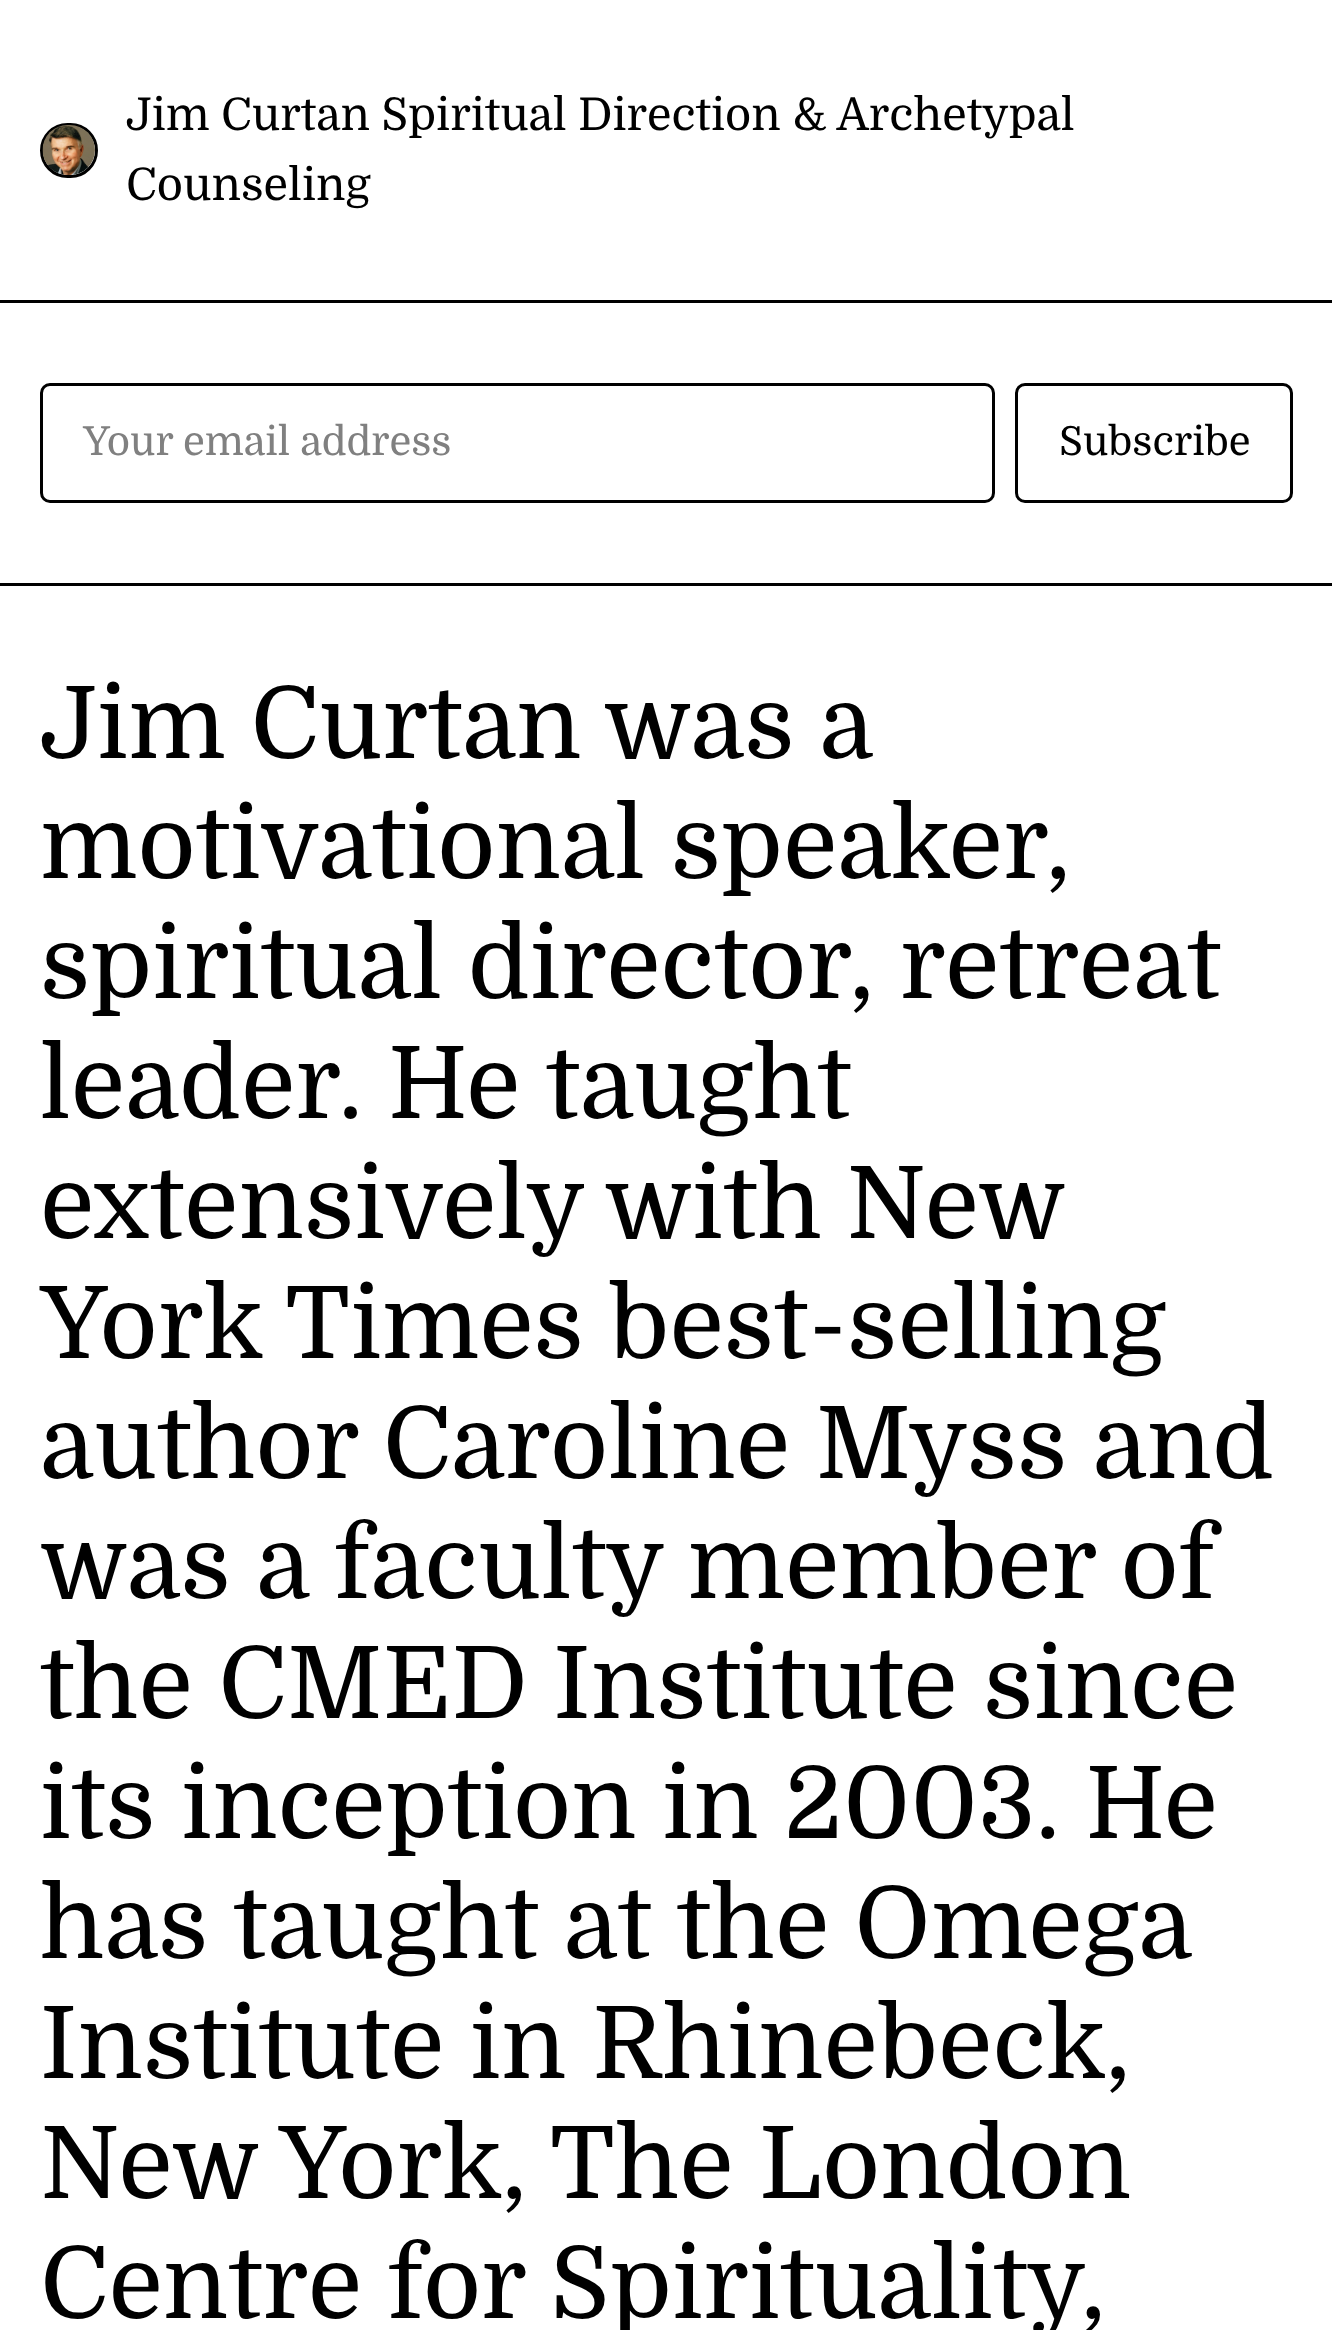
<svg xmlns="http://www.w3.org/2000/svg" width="1332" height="2330">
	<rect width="100%" height="100%" fill="#FFFFFF" />
	<rect x="0" y="300" width="1332" height="3" fill="#000000" />
	<rect x="41.5" y="124.5" width="55" height="52" rx="26" fill="none" stroke="#000000" stroke-width="3" />
	<image x="42" y="125" width="53" height="50" href="assets/img1.png" />
	<g font-family="Domine" font-size="45" fill="#000000">
		<text x="126" y="130">Jim Curtan Spiritual Direction &amp; Archetypal</text>
		<text x="126" y="200">Counseling</text>
	</g>
	<rect x="0" y="583" width="1332" height="3" fill="#000000" />
	<rect x="41.5" y="384.5" width="952" height="117" rx="8.5" fill="none" stroke="#000000" stroke-width="3" />
	<text x="83" y="455" font-family="Domine" font-size="40" fill="#808080">Your email address</text>
	<rect x="1016.5" y="384.5" width="275" height="117" rx="8.5" fill="none" stroke="#000000" stroke-width="3" />
	<text x="1059" y="455" font-family="Domine" font-size="40" fill="#000000">Subscribe</text>
	<g font-family="Domine" font-size="100" fill="#000000">
		<text x="40" y="758" word-spacing="-0.5">Jim Curtan was a</text>
		<text x="40" y="878">motivational speaker,</text>
		<text x="40" y="998">spiritual director, retreat</text>
		<text x="40" y="1118">leader. He taught</text>
		<text x="40" y="1238" word-spacing="-1">extensively with New</text>
		<text x="40" y="1358">York Times best-selling</text>
		<text x="40" y="1478">author Caroline Myss and</text>
		<text x="40" y="1598">was a faculty member of</text>
		<text x="40" y="1718">the CMED Institute since</text>
		<text x="40" y="1838">its inception in 2003. He</text>
		<text x="40" y="1958" word-spacing="-0.5">has taught at the Omega</text>
		<text x="40" y="2078">Institute in Rhinebeck,</text>
		<text x="40" y="2198">New York, The London</text>
		<text x="40" y="2318">Centre for Spirituality,</text>
	</g>
</svg>
